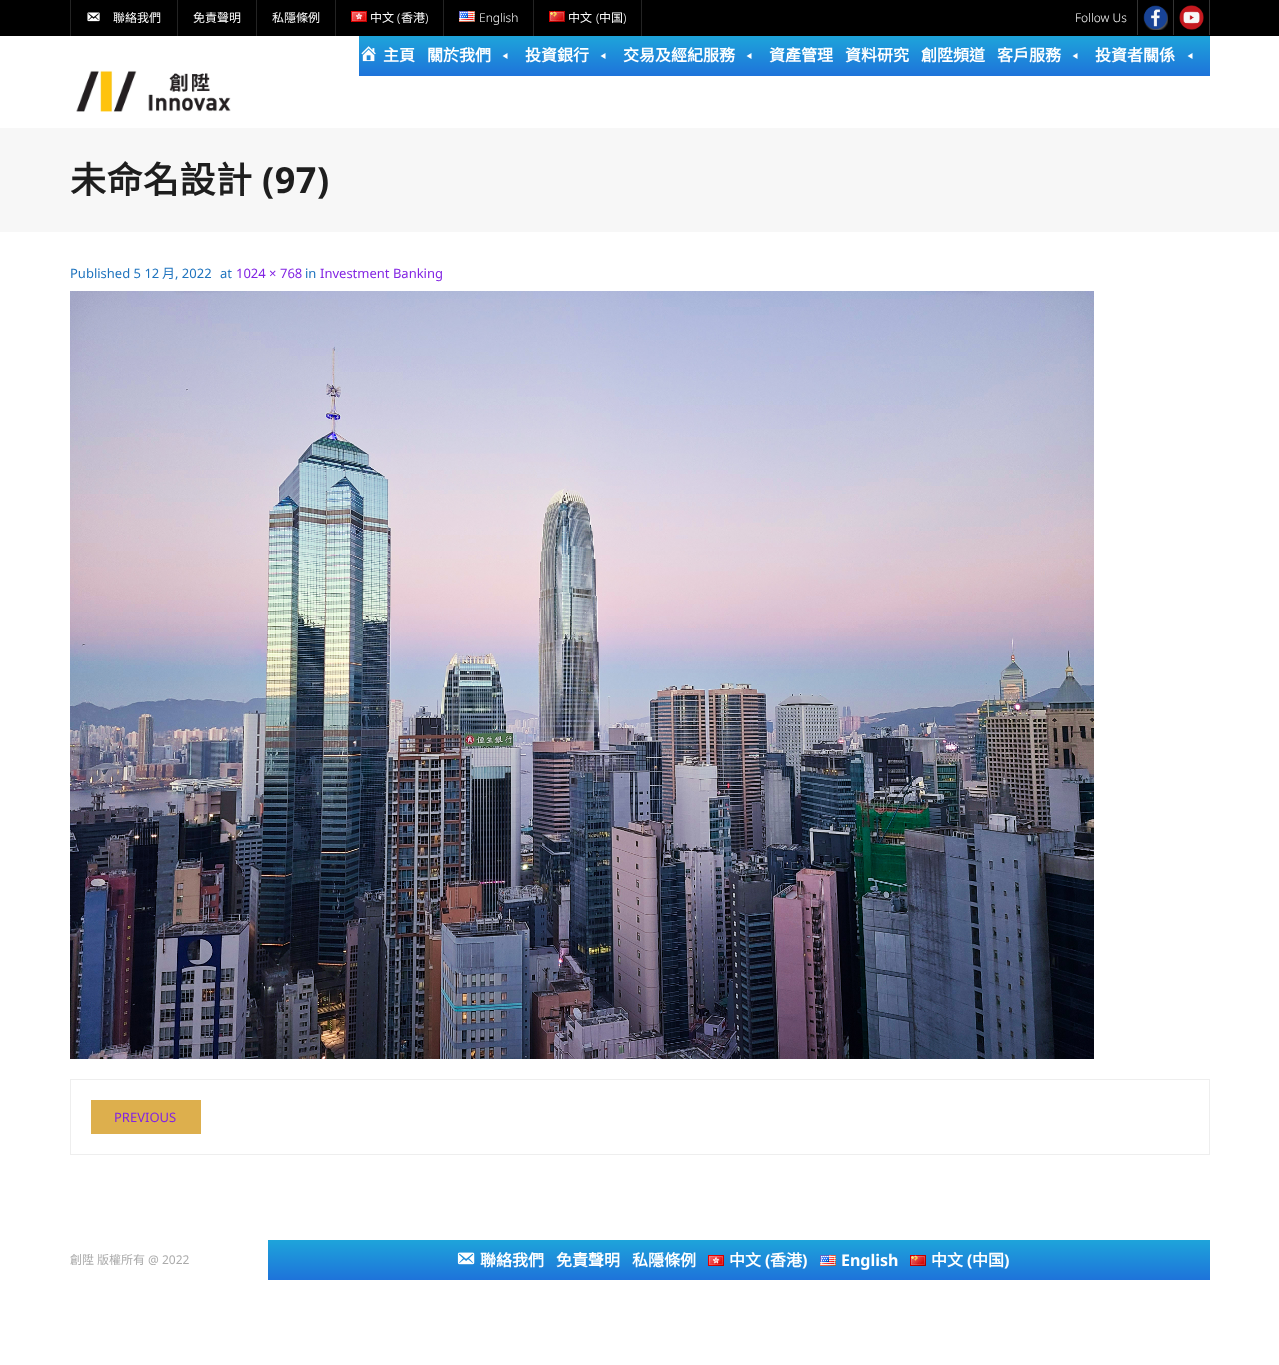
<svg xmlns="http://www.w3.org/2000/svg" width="1279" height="1365">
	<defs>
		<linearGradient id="g1" gradientUnits="userSpaceOnUse" x1="785" y1="36" x2="785" y2="76"><stop offset="0" stop-color="#1EA4DA" /><stop offset="1" stop-color="#1E73DA" /></linearGradient>
		<linearGradient id="g2" gradientUnits="userSpaceOnUse" x1="739" y1="1240" x2="739" y2="1280"><stop offset="0" stop-color="#1EA4DA" /><stop offset="1" stop-color="#1E73DA" /></linearGradient>
	</defs>
	<rect width="100%" height="100%" fill="#FFFFFF" />
	<rect x="0" y="0" width="1279" height="36" fill="#000000" />
	<rect x="70" y="0" width="1" height="36" fill="#232323" />
	<image x="87" y="12" width="13" height="10" href="assets/img1.png" />
	<text x="113" y="22" font-family="Noto Sans CJK HK" font-size="12" fill="#FFFFFF">聯絡我們</text>
	<rect x="177" y="0" width="1" height="36" fill="#232323" />
	<text x="193" y="22" font-family="Noto Sans CJK HK" font-size="12" fill="#FFFFFF">免責聲明</text>
	<rect x="256" y="0" width="1" height="36" fill="#232323" />
	<text x="272" y="22" font-family="Noto Sans CJK HK" font-size="12" fill="#FFFFFF">私隱條例</text>
	<rect x="335" y="0" width="1" height="36" fill="#232323" />
	<image x="351" y="11" width="16" height="11" href="assets/img2.png" />
	<text x="370" y="22" font-family="Noto Sans CJK HK" font-size="12" fill="#FFFFFF">中文</text>
	<text x="397" y="22" font-family="Noto Sans" font-size="12" font-weight="300" fill="#FFFFFF">(</text>
	<text x="401" y="22" font-family="Noto Sans CJK HK" font-size="12" fill="#FFFFFF">香港</text>
	<text x="425" y="22" font-family="Noto Sans" font-size="12" font-weight="300" fill="#FFFFFF">)</text>
	<rect x="443" y="0" width="1" height="36" fill="#232323" />
	<image x="459" y="11" width="16" height="11" href="assets/img3.png" />
	<text x="479" y="22" font-family="Noto Sans" font-size="12" font-weight="300" fill="#FFFFFF">English</text>
	<rect x="641" y="0" width="1" height="36" fill="#232323" />
	<rect x="533" y="0" width="1" height="36" fill="#232323" />
	<image x="549" y="11" width="16" height="11" href="assets/img4.png" />
	<text x="568" y="22" font-family="Noto Sans CJK HK" font-size="12" fill="#FFFFFF">中文</text>
	<text x="596" y="22" font-family="Noto Sans" font-size="12" font-weight="300" fill="#FFFFFF">(</text>
	<text x="599" y="22" font-family="Noto Sans CJK HK" font-size="12" fill="#FFFFFF">中国</text>
	<g font-family="Noto Sans" font-size="12" font-weight="300" fill="#FFFFFF">
		<text x="623" y="22">)</text>
		<text x="1075" y="22">Follow Us</text>
	</g>
	<image x="1143" y="5" width="25" height="25" href="assets/img5.png" />
	<rect x="1137" y="0" width="1" height="35" fill="#333333" />
	<image x="1179" y="5" width="25" height="25" href="assets/img6.png" />
	<rect x="1209" y="0" width="1" height="35" fill="#333333" />
	<rect x="1173" y="0" width="1" height="35" fill="#333333" />
	<rect x="359" y="36" width="851" height="40" fill="url(#g1)" />
	<image x="361" y="46" width="15" height="16" href="assets/img7.png" />
	<g font-family="Noto Sans CJK HK" font-size="16" font-weight="700" fill="#FFFFFF">
		<text x="383" y="61">主頁</text>
		<text x="427" y="61">關於我們</text>
	</g>
	<path d="M507.5 59L502.5 56L507.5 53Z" fill="#FFFFFF" />
	<text x="525" y="61" font-family="Noto Sans CJK HK" font-size="16" font-weight="700" fill="#FFFFFF">投資銀行</text>
	<path d="M605.5 59L600.5 56L605.5 53Z" fill="#FFFFFF" />
	<text x="623" y="61" font-family="Noto Sans CJK HK" font-size="16" font-weight="700" fill="#FFFFFF">交易及經紀服務</text>
	<path d="M751.5 59L746.5 56L751.5 53Z" fill="#FFFFFF" />
	<g font-family="Noto Sans CJK HK" font-size="16" font-weight="700" fill="#FFFFFF">
		<text x="769" y="61">資產管理</text>
		<text x="845" y="61">資料研究</text>
		<text x="921" y="61">創陞頻道</text>
		<text x="997" y="61">客戶服務</text>
	</g>
	<path d="M1077.5 59L1072.5 56L1077.5 53Z" fill="#FFFFFF" />
	<text x="1095" y="61" font-family="Noto Sans CJK HK" font-size="16" font-weight="700" fill="#FFFFFF">投資者關係</text>
	<path d="M1192.5 59L1187.5 56L1192.5 53Z" fill="#FFFFFF" />
	<image x="76" y="70" width="155" height="42" href="assets/img8.png" />
	<rect x="0" y="128" width="1279" height="104" fill="#F7F7F7" />
	<text x="70" y="193" font-family="Noto Sans CJK HK" font-size="36" font-weight="700" letter-spacing="0.5" fill="#1E1E1E">未命名設計</text>
	<text x="262" y="193" font-family="Noto Sans" font-size="36" font-weight="700" letter-spacing="0.5" fill="#1E1E1E">(97)</text>
	<text x="70" y="278" font-family="Noto Sans" font-size="13" fill="#1E73BE">Published 5 12</text>
	<text x="162" y="278" font-family="Noto Sans CJK HK" font-size="13" fill="#1E73BE">月</text>
	<g font-family="Noto Sans" font-size="13" fill="#1E73BE">
		<text x="175" y="278">, 2022</text>
		<text x="220" y="278">at</text>
	</g>
	<text x="236" y="278" font-family="Noto Sans" font-size="13" fill="#8224E3">1024 × 768</text>
	<text x="305" y="278" font-family="Noto Sans" font-size="13" fill="#1E73BE">in</text>
	<text x="320" y="278" font-family="Noto Sans" font-size="13" fill="#8224E3">Investment Banking</text>
	<image x="70" y="291" width="1024" height="768" href="assets/img9.png" />
	<rect x="70.5" y="1079.5" width="1139" height="75" fill="none" stroke="#EEEEEE" />
	<rect x="91" y="1100" width="110" height="34" fill="#DDAF4D" />
	<text x="114" y="1122" font-family="Noto Sans" font-size="13" fill="#8224E3">PREVIOUS</text>
	<g font-family="Noto Sans CJK HK" font-size="12" fill="#AAAAAA">
		<text x="70" y="1264">創陞</text>
		<text x="97" y="1264">版權所有</text>
	</g>
	<text x="148" y="1264" font-family="Noto Sans" font-size="12" fill="#AAAAAA">@ 2022</text>
	<rect x="268" y="1240" width="942" height="40" fill="url(#g2)" />
	<image x="457" y="1252" width="18" height="13" href="assets/img10.png" />
	<g font-family="Noto Sans CJK HK" font-size="16" font-weight="700" fill="#FFFFFF">
		<text x="480" y="1266">聯絡我們</text>
		<text x="556" y="1266">免責聲明</text>
		<text x="632" y="1266">私隱條例</text>
	</g>
	<image x="708" y="1255" width="16" height="11" href="assets/img2.png" />
	<text x="729" y="1266" font-family="Noto Sans CJK HK" font-size="16" font-weight="700" fill="#FFFFFF">中文</text>
	<text x="765" y="1266" font-family="Noto Sans" font-size="16" font-weight="700" fill="#FFFFFF">(</text>
	<text x="770" y="1266" font-family="Noto Sans CJK HK" font-size="16" font-weight="700" fill="#FFFFFF">香港</text>
	<text x="802" y="1266" font-family="Noto Sans" font-size="16" font-weight="700" fill="#FFFFFF">)</text>
	<image x="820" y="1255" width="16" height="11" href="assets/img3.png" />
	<text x="841" y="1266" font-family="Noto Sans" font-size="16" font-weight="700" fill="#FFFFFF">English</text>
	<image x="910" y="1255" width="16" height="11" href="assets/img4.png" />
	<text x="931" y="1266" font-family="Noto Sans CJK HK" font-size="16" font-weight="700" fill="#FFFFFF">中文</text>
	<text x="967" y="1266" font-family="Noto Sans" font-size="16" font-weight="700" fill="#FFFFFF">(</text>
	<text x="972" y="1266" font-family="Noto Sans CJK HK" font-size="16" font-weight="700" fill="#FFFFFF">中国</text>
	<text x="1004" y="1266" font-family="Noto Sans" font-size="16" font-weight="700" fill="#FFFFFF">)</text>
</svg>
